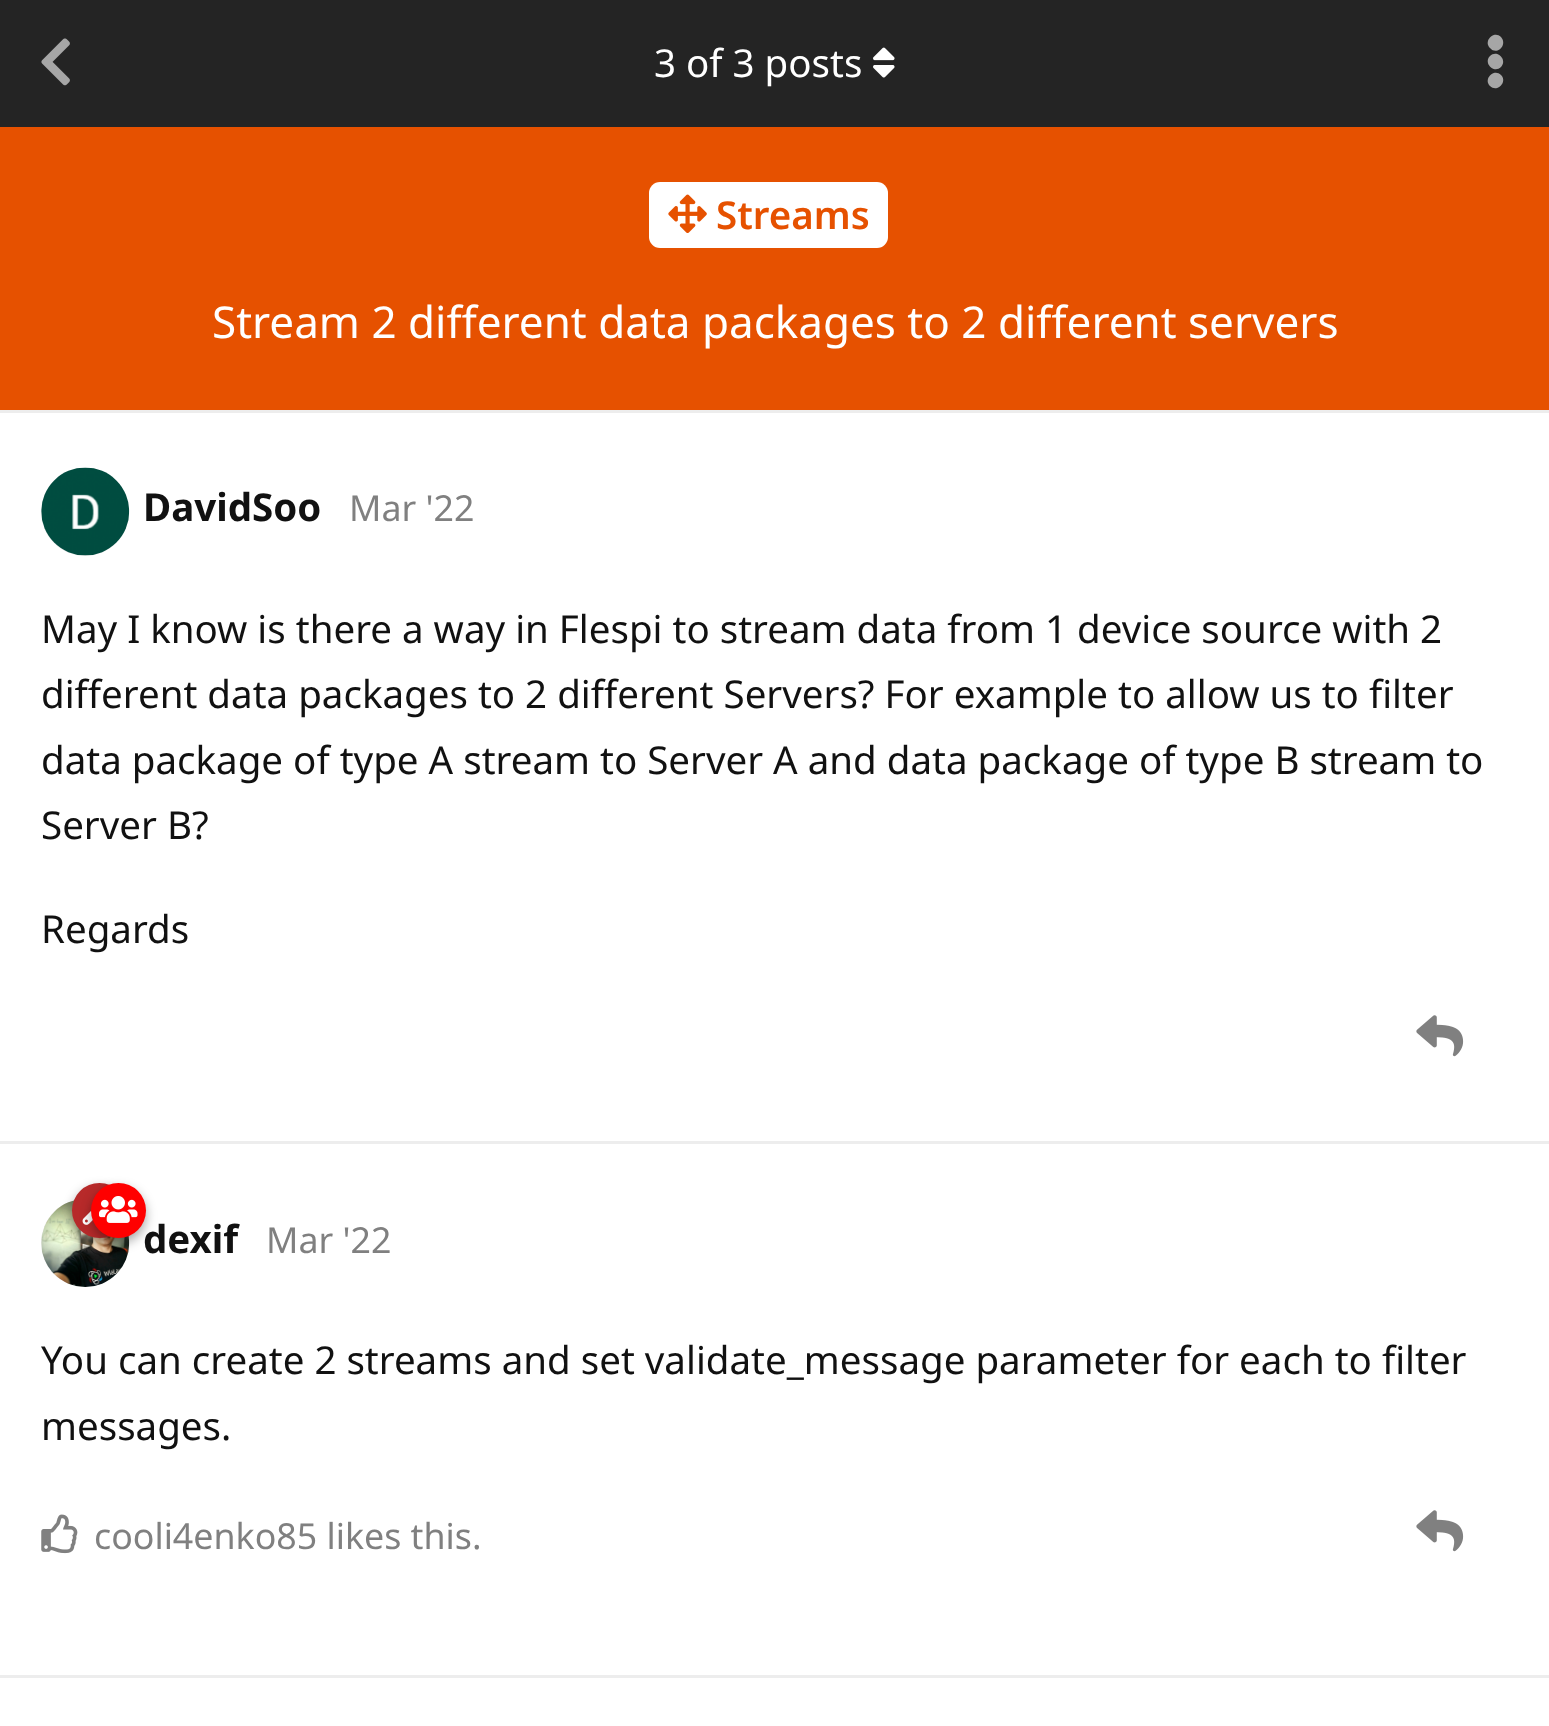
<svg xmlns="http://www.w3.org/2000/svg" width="1549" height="1726">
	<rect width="100%" height="100%" fill="#FFFFFF" />
	<rect x="0" y="0" width="1549" height="127" fill="#242424" />
	<image x="41" y="38" width="29" height="48" href="assets/img1.png" />
	<rect x="0" y="410" width="1549" height="3" fill="#EDEDED" />
	<text x="654" y="77" font-family="Noto Sans" font-size="38.5" fill="#FFFFFF">3 of 3 posts</text>
	<image x="873" y="47" width="22" height="31" href="assets/img2.png" />
	<path d="M1490 56C1497 49 1508 60 1501 67C1494 74 1483 63 1490 56ZM1490 48C1483 41 1494 30 1501 37C1508 45 1497 56 1490 48ZM1490 86C1483 79 1494 68 1501 75C1508 82 1497 93 1490 86Z" fill="#A6A6A6" />
	<rect x="0" y="1141" width="1549" height="3" fill="#EDEDED" />
	<circle cx="85" cy="512" r="44" fill="#EDEDED" />
	<image x="41" y="467" width="89" height="89" href="assets/img3.png" />
	<text x="143" y="521" font-family="Noto Sans" font-size="38.5" font-weight="700" fill="#111111">DavidSoo</text>
	<text x="349" y="521" font-family="Noto Sans" font-size="35.75" fill="#808080">Mar '22</text>
	<g font-family="Noto Sans" font-size="38.5" fill="#111111">
		<text x="41" y="643">May I know is there a way in Flespi to stream data from 1 device source with 2</text>
		<text x="41" y="708">different data packages to 2 different Servers? For example to allow us to filter</text>
		<text x="41" y="774">data package of type A stream to Server A and data package of type B stream to</text>
		<text x="41" y="839">Server B?</text>
		<text x="41" y="943">Regards</text>
	</g>
	<image x="1416" y="1015" width="48" height="42" href="assets/img4.png" />
	<rect x="0" y="1675" width="1549" height="3" fill="#EDEDED" />
	<circle cx="85" cy="1243" r="44" fill="#EDEDED" />
	<image x="41" y="1200" width="89" height="87" href="assets/img7.png" />
	<rect x="72" y="1188" width="55" height="55" rx="27.5" fill="#000000" fill-opacity="0.35" filter="blur(5.5px)" />
	<circle cx="99.5" cy="1210.5" r="27.5" fill="#B72A2A" />
	<image x="82" y="1210" width="11" height="15" href="assets/img5.png" />
	<rect x="91" y="1188" width="55" height="55" rx="27.5" fill="#000000" fill-opacity="0.35" filter="blur(5.5px)" />
	<text x="143" y="1253" font-family="Noto Sans" font-size="38.5" font-weight="700" fill="#111111">dexif</text>
	<circle cx="118.5" cy="1210.5" r="27.5" fill="#FF0000" />
	<image x="99" y="1196" width="39" height="27" href="assets/img6.png" />
	<text x="266" y="1253" font-family="Noto Sans" font-size="35.75" fill="#808080">Mar '22</text>
	<g font-family="Noto Sans" font-size="38.5" fill="#111111">
		<text x="41" y="1374">You can create 2 streams and set validate_message parameter for each to filter</text>
		<text x="41" y="1440">messages.</text>
	</g>
	<image x="41" y="1514" width="37" height="40" href="assets/img8.png" />
	<text x="94" y="1549" font-family="Noto Sans" font-size="35.75" fill="#808080">cooli4enko85 likes this.</text>
	<image x="1416" y="1510" width="48" height="42" href="assets/img4.png" />
	<rect x="0" y="127" width="1549" height="283" fill="#E65100" />
	<rect x="649" y="182" width="239" height="66" rx="11" fill="#FFFFFF" />
	<image x="668" y="194" width="39" height="39" href="assets/img9.png" />
	<text x="716" y="229" font-family="Noto Sans" font-size="38.5" font-weight="600" fill="#E65100">Streams</text>
	<text x="212" y="338" font-family="Noto Sans" font-size="44" fill="#FFFFFF">Stream 2 different data packages to 2 different servers</text>
</svg>
